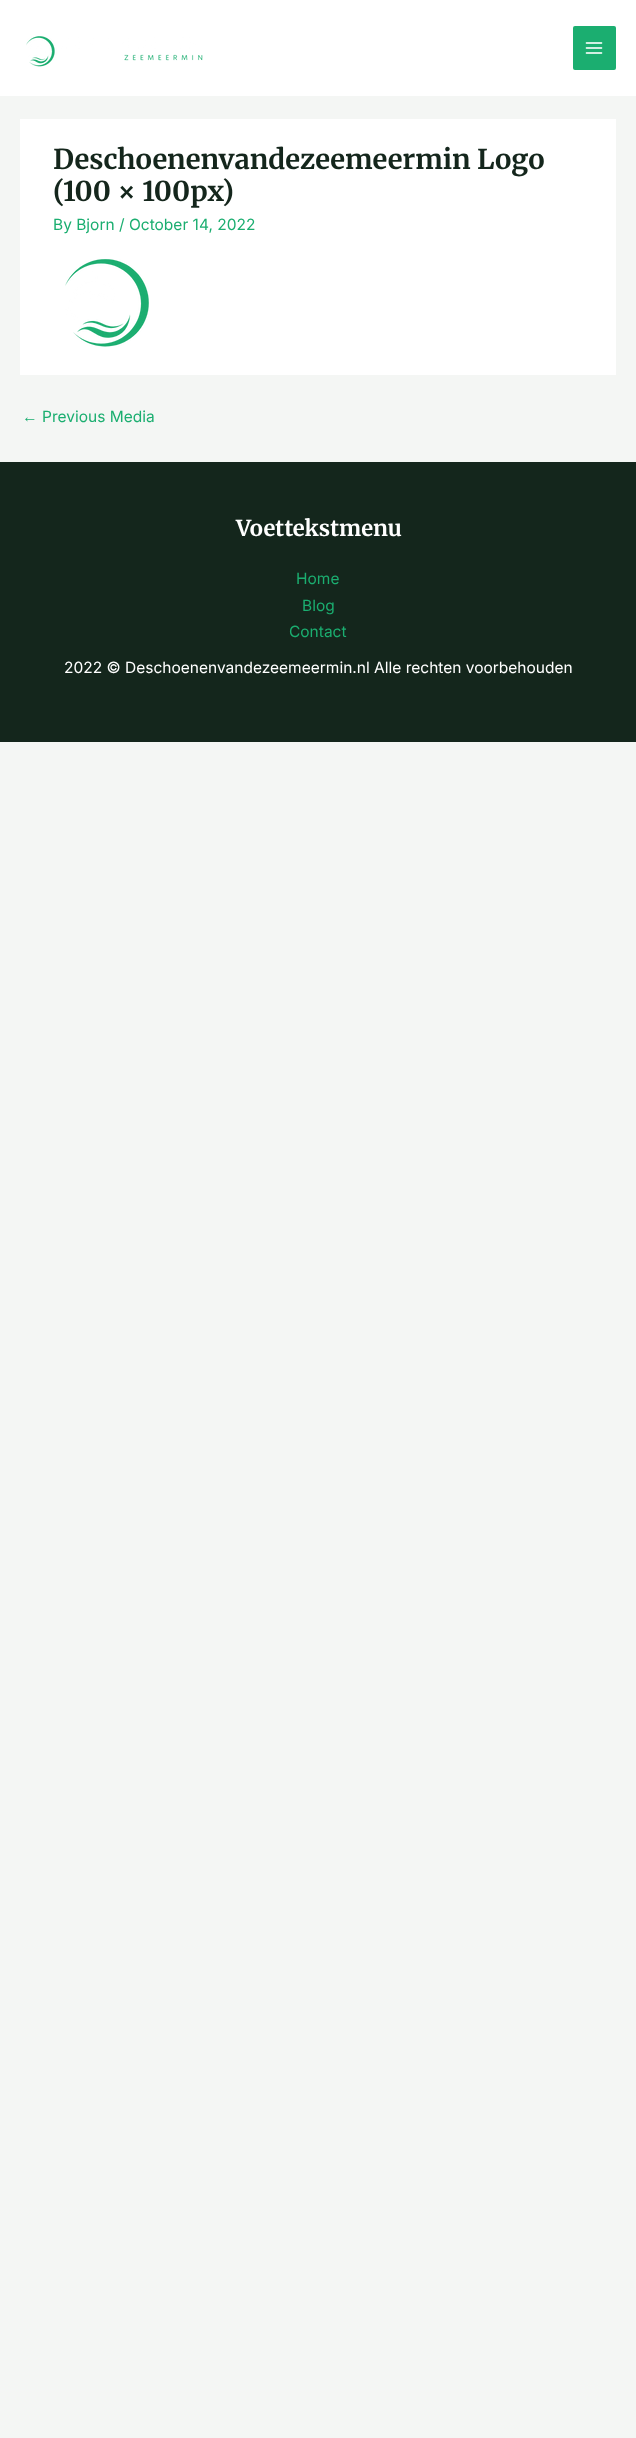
<svg xmlns="http://www.w3.org/2000/svg" width="636" height="2438">
	<rect width="100%" height="100%" fill="#F4F6F4" />
	<rect x="0" y="0" width="636" height="96" fill="#FFFFFF" />
	<image x="26" y="36" width="177" height="31" href="assets/img1.png" />
	<rect x="573" y="26" width="43" height="44" rx="2" fill="#1BAE70" />
	<image x="585" y="42" width="18" height="12" href="assets/img2.png" />
	<rect x="20" y="119" width="596" height="256" fill="#FFFFFF" />
	<g font-family="Merriweather" font-size="27.4" font-weight="300" fill="#14261C">
		<text x="53" y="169">Deschoenenvandezeemeermin Logo</text>
		<text x="53" y="201">(100 × 100px)</text>
	</g>
	<text x="53" y="230" font-family="Inter" font-size="15.5" fill="#1BAE70">By Bjorn / October 14, 2022</text>
	<image x="65" y="259" width="84" height="88" href="assets/img3.png" />
	<text x="22" y="422" font-family="Liberation Sans" font-size="15.5" fill="#1BAE70">←</text>
	<text x="42" y="422" font-family="Inter" font-size="15.5" fill="#1BAE70">Previous Media</text>
	<rect x="0" y="462" width="636" height="280" fill="#14261C" />
	<text x="236" y="536" font-family="Merriweather" font-size="22" font-weight="300" fill="#FFFFFF">Voettekstmenu</text>
	<g font-family="Inter" font-size="15.5" fill="#1BAE70">
		<text x="296" y="584">Home</text>
		<text x="302" y="611">Blog</text>
		<text x="289" y="637">Contact</text>
	</g>
	<text x="64" y="673" font-family="Inter" font-size="15.5" fill="#FFFFFF">2022 © Deschoenenvandezeemeermin.nl Alle rechten voorbehouden</text>
</svg>
